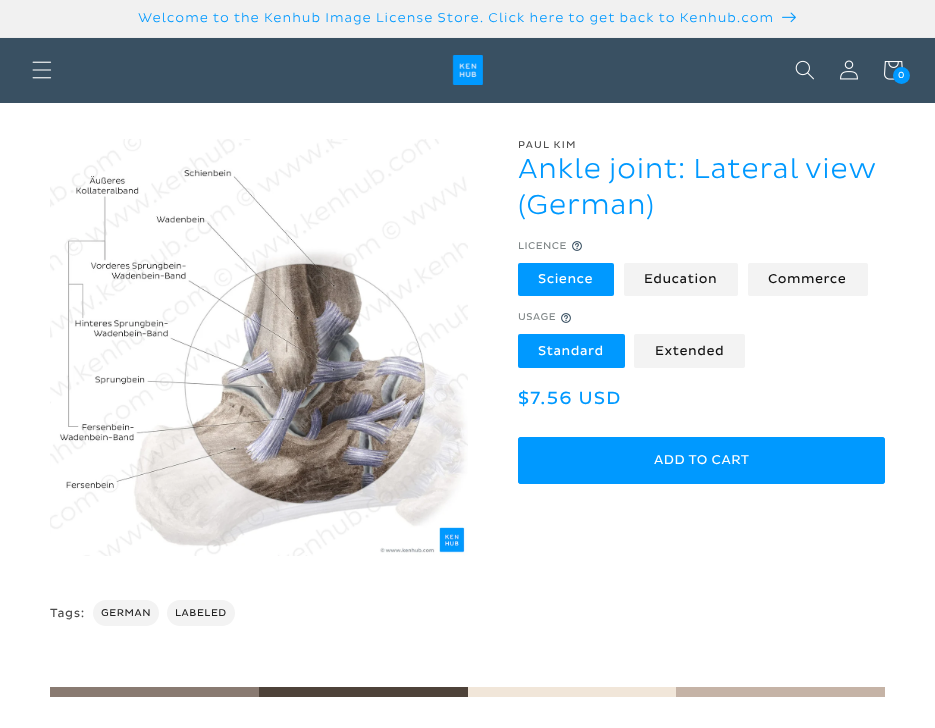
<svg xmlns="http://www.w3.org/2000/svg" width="935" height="728">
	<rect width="100%" height="100%" fill="#FFFFFF" />
	<rect x="0" y="37" width="935" height="1" fill="#ECECEC" />
	<rect x="0" y="0" width="935" height="37" fill="#F1F1F1" />
	<text x="138" y="22" font-family="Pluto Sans" font-size="13" font-weight="300" letter-spacing="1" fill="#0099FF">Welcome to the Kenhub Image License Store. Click here to get back to Kenhub.com</text>
	<image x="782" y="12" width="14" height="11" href="assets/img1.png" />
	<rect x="0" y="38" width="935" height="65" fill="#395062" />
	<image x="32" y="61" width="20" height="18" href="assets/img2.png" />
	<image x="452" y="55" width="31" height="30" href="assets/img3.png" />
	<image x="795" y="60" width="19" height="20" href="assets/img4.png" />
	<image x="840" y="60" width="18" height="20" href="assets/img5.png" />
	<image x="884" y="61" width="19" height="19" href="assets/img6.png" />
	<circle cx="901.5" cy="75.5" r="8.5" fill="#0099FF" />
	<text x="898" y="78" font-family="Pluto Sans" font-size="9" letter-spacing="0.6" fill="#FFFFFF">0</text>
	<image x="50" y="139" width="418" height="417" href="assets/img7.png" />
	<text x="518" y="148" font-family="Pluto Sans" font-size="10" letter-spacing="1.25" fill="#4D4D4D">PAUL KIM</text>
	<g font-family="Pluto Sans" font-size="28" font-weight="300" letter-spacing="0.6" fill="#0099FF">
		<text x="518" y="178">Ankle joint: Lateral view</text>
		<text x="518" y="214">(German)</text>
	</g>
	<text x="518" y="249" font-family="Pluto Sans" font-size="10" letter-spacing="0.5" fill="#808788">LICENCE</text>
	<image x="572" y="241" width="10" height="10" href="assets/img8.png" />
	<rect x="518" y="263" width="96" height="33" rx="2" fill="#0099FF" />
	<text x="538" y="283" font-family="Pluto Sans" font-size="13" letter-spacing="0.5" fill="#FFFFFF">Science</text>
	<rect x="624" y="263" width="114" height="33" rx="2" fill="#F3F3F3" />
	<text x="644" y="283" font-family="Pluto Sans" font-size="13" letter-spacing="0.5" fill="#121212">Education</text>
	<rect x="748" y="263" width="120" height="33" rx="2" fill="#F3F3F3" />
	<text x="768" y="283" font-family="Pluto Sans" font-size="13" letter-spacing="0.5" fill="#121212">Commerce</text>
	<text x="518" y="320" font-family="Pluto Sans" font-size="10" letter-spacing="0.5" fill="#808788">USAGE</text>
	<image x="561" y="313" width="10" height="10" href="assets/img8.png" />
	<rect x="518" y="334" width="107" height="34" rx="2" fill="#0099FF" />
	<text x="538" y="355" font-family="Pluto Sans" font-size="13" letter-spacing="0.5" fill="#FFFFFF">Standard</text>
	<rect x="634" y="334" width="111" height="34" rx="2" fill="#F3F3F3" />
	<text x="655" y="355" font-family="Pluto Sans" font-size="13" letter-spacing="0.5" fill="#121212">Extended</text>
	<text x="518" y="404" font-family="Pluto Sans" font-size="18" letter-spacing="1.25" fill="#0099FF">$7.56 USD</text>
	<rect x="518" y="437" width="367" height="47" rx="3" fill="#0099FF" />
	<rect x="518.5" y="437.5" width="366" height="46" rx="2.5" fill="none" stroke="#0099FF" />
	<text x="654" y="464" font-family="Pluto Sans" font-size="13" letter-spacing="0.5" fill="#FFFFFF">ADD TO CART</text>
	<text x="50" y="617" font-family="Pluto Sans" font-size="12" letter-spacing="0.6" fill="#4D4D4D">Tags:</text>
	<rect x="93" y="600" width="66" height="26" rx="13" fill="#F3F3F3" />
	<text x="101" y="616" font-family="Pluto Sans" font-size="10" letter-spacing="0.6" fill="#222222">GERMAN</text>
	<rect x="167" y="600" width="68" height="26" rx="13" fill="#F3F3F3" />
	<text x="175" y="616" font-family="Pluto Sans" font-size="10" letter-spacing="0.6" fill="#222222">LABELED</text>
	<rect x="50" y="687" width="209" height="10" fill="#897A71" />
	<rect x="259" y="687" width="209" height="10" fill="#4E4239" />
	<rect x="468" y="687" width="208" height="10" fill="#F1E6D9" />
	<rect x="676" y="687" width="209" height="10" fill="#C5B3A6" />
</svg>
